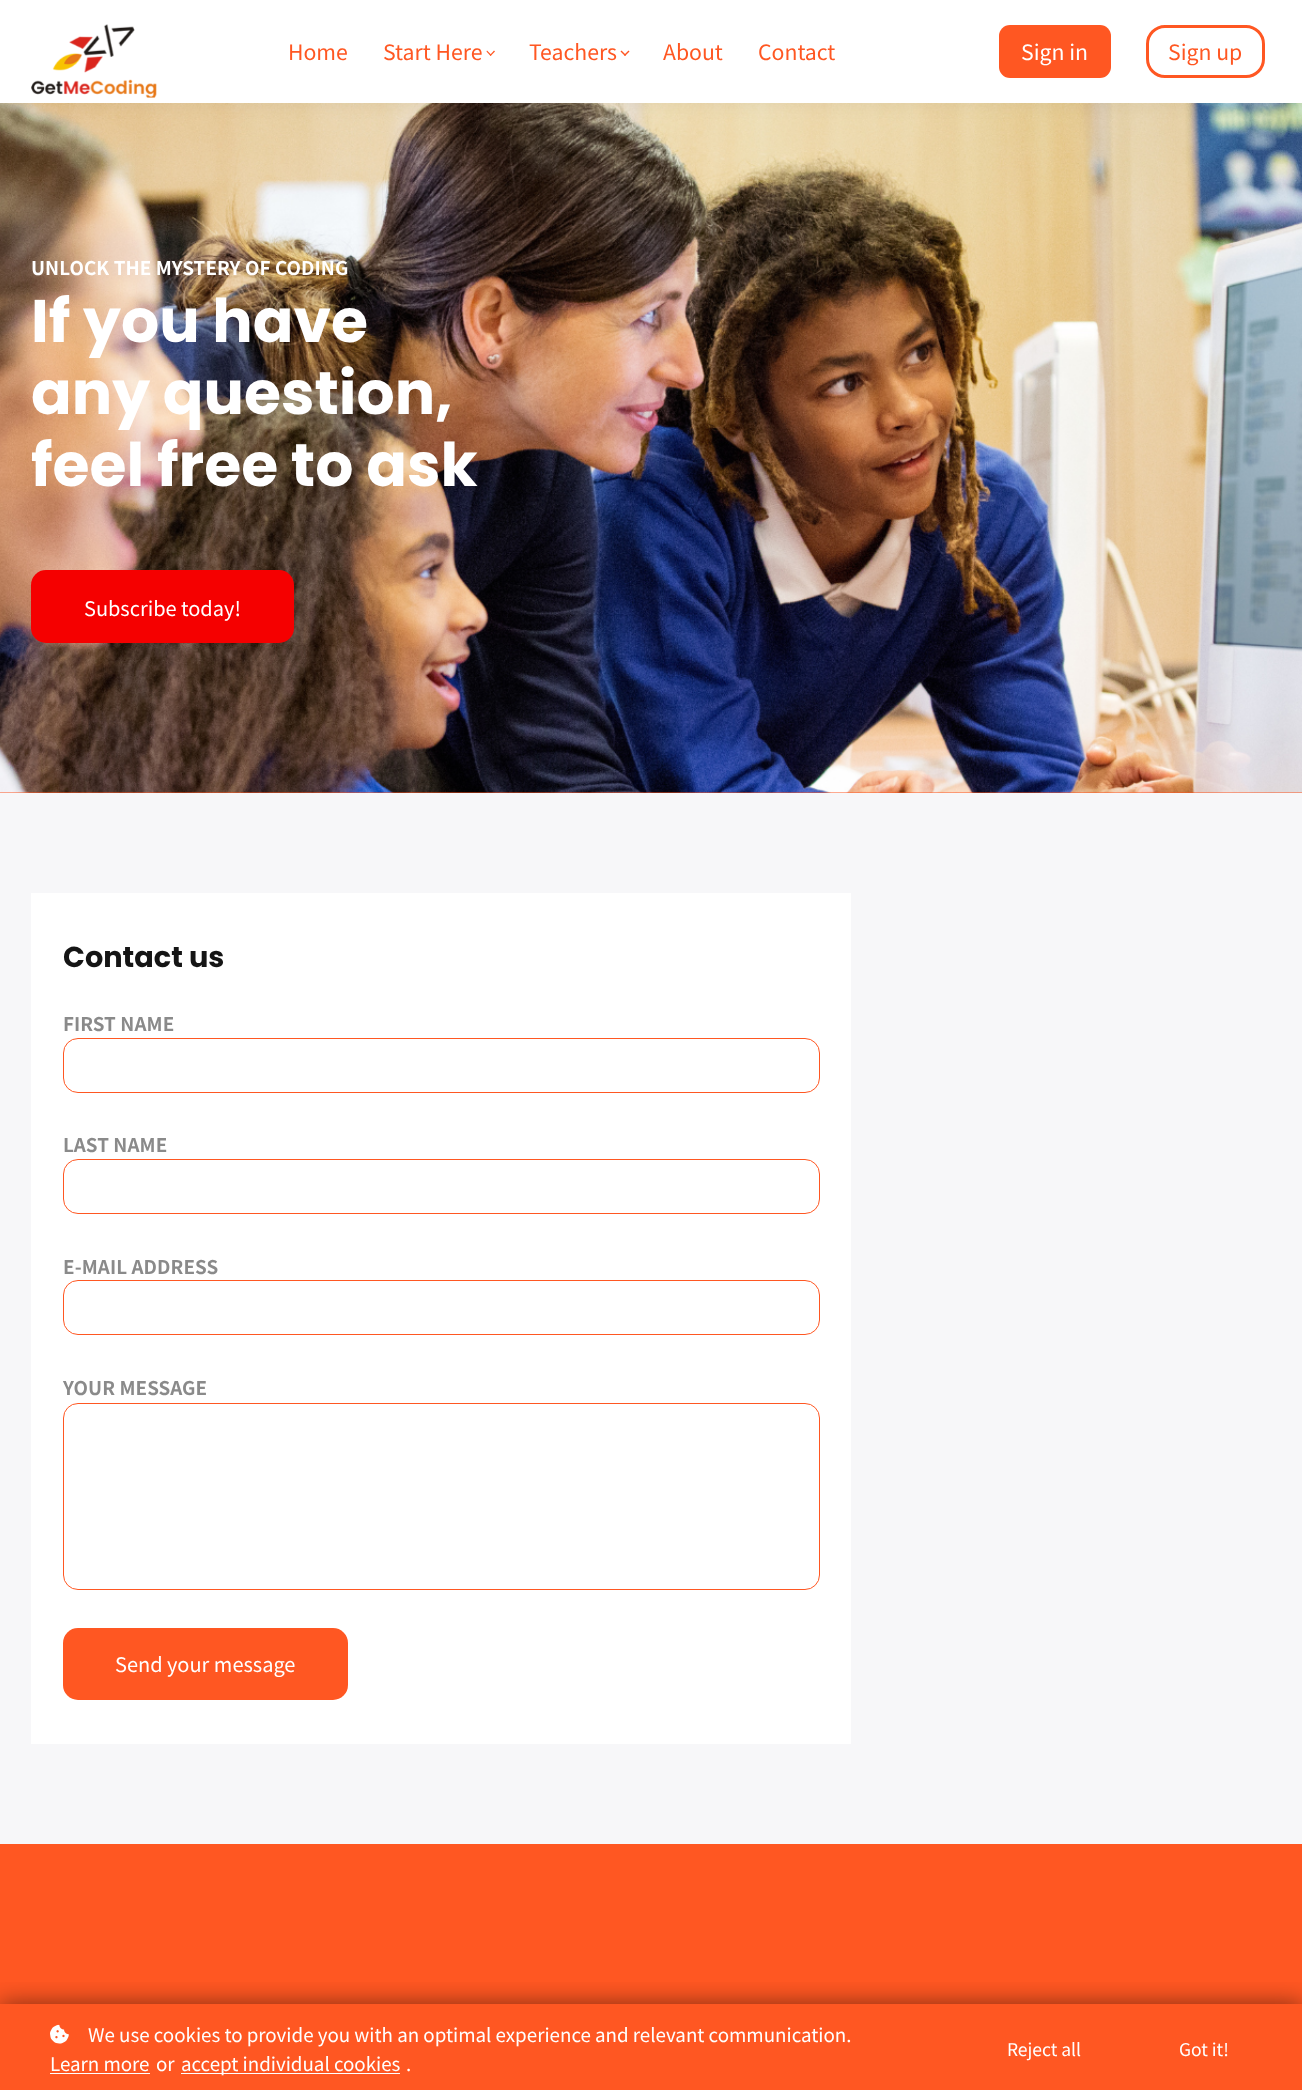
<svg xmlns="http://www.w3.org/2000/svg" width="1302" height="2090">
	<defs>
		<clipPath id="clip1"><rect x="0" y="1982" width="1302" height="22" /></clipPath>
	</defs>
	<rect width="100%" height="100%" fill="#FF5722" />
	<image x="0" y="103" width="1302" height="690" href="assets/img2.png" />
	<rect x="0" y="0" width="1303" height="103" fill="#000000" fill-opacity="0.05" filter="blur(9.5px)" />
	<rect x="0" y="0" width="1302" height="103" fill="#FFFFFF" />
	<image x="31" y="24" width="126" height="74" href="assets/img1.png" />
	<g font-family="Noto Sans JP" font-size="21.25" fill="#FF5722">
		<text x="288" y="60">Home</text>
		<text x="383" y="60">Start Here</text>
	</g>
	<path d="M495 51.5L490.5 56L490 55L494 50.5Z" fill="#FF5722" />
	<path d="M491.5 55L490.5 56L486.5 51.5L487 50.5Z" fill="#FF5722" />
	<text x="529" y="60" font-family="Noto Sans JP" font-size="21.25" fill="#FF5722">Teachers</text>
	<path d="M629.5 51.5L625 56L624 55L628.5 50.5Z" fill="#FF5722" />
	<path d="M626 55L625 56L620.5 51.5L621.5 50.5Z" fill="#FF5722" />
	<g font-family="Noto Sans JP" font-size="21.25" fill="#FF5722">
		<text x="663" y="60">About</text>
		<text x="758" y="60">Contact</text>
	</g>
	<rect x="999" y="25" width="112" height="53" rx="11" fill="#FF5722" />
	<text x="1021" y="60" font-family="Noto Sans JP" font-size="21.25" fill="#FFFFFF">Sign in</text>
	<rect x="1147.5" y="26.5" width="116" height="50" rx="17.5" fill="none" stroke="#FF5722" stroke-width="3" />
	<text x="1168" y="60" font-family="Noto Sans JP" font-size="21.25" fill="#FF5722">Sign up</text>
	<text x="31" y="275" font-family="Noto Sans JP" font-size="18.75" font-weight="700" letter-spacing="0.1" fill="#FFFFFF">UNLOCK THE MYSTERY OF CODING</text>
	<g font-family="Poppins" font-size="60" font-weight="700" fill="#FFFFFF">
		<text x="31" y="342">If you have</text>
		<text x="31" y="414">any question,</text>
		<text x="31" y="486">feel free to ask</text>
	</g>
	<rect x="31" y="570" width="263" height="73" rx="15" fill="#F50000" />
	<text x="84" y="616" font-family="Noto Sans JP" font-size="20" fill="#FFFFFF">Subscribe today!</text>
	<rect x="0" y="793" width="1302" height="1051" fill="#F7F7F9" />
	<rect x="31" y="893" width="820" height="851" fill="#FFFFFF" />
	<text x="63" y="967" font-family="Poppins" font-size="28.75" font-weight="700" fill="#151515">Contact us</text>
	<text x="63" y="1031" font-family="Noto Sans JP" font-size="18.75" font-weight="700" letter-spacing="0.1" fill="#8A8A8A">FIRST NAME</text>
	<rect x="63.5" y="1038.5" width="756" height="54" rx="14.5" fill="none" stroke="#FF5722" />
	<text x="63" y="1152" font-family="Noto Sans JP" font-size="18.75" font-weight="700" letter-spacing="0.1" fill="#8A8A8A">LAST NAME</text>
	<rect x="63.5" y="1159.5" width="756" height="54" rx="14.5" fill="none" stroke="#FF5722" />
	<text x="63" y="1274" font-family="Noto Sans JP" font-size="18.75" font-weight="700" letter-spacing="0.1" fill="#8A8A8A">E-MAIL ADDRESS</text>
	<rect x="63.5" y="1280.5" width="756" height="54" rx="14.5" fill="none" stroke="#FF5722" />
	<text x="63" y="1395" font-family="Noto Sans JP" font-size="18.75" font-weight="700" letter-spacing="0.1" fill="#8A8A8A">YOUR MESSAGE</text>
	<rect x="63.5" y="1403.5" width="756" height="186" rx="14.5" fill="none" stroke="#FF5722" />
	<rect x="63" y="1628" width="285" height="72" rx="15" fill="#FF5722" />
	<text x="115" y="1672" font-family="Noto Sans JP" font-size="20" fill="#FFFFFF">Send your message</text>
	<g clip-path="url(#clip1)">
		<rect x="0" y="2004" width="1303" height="86" fill="#000000" fill-opacity="0.5" filter="blur(12.5px)" />
	</g>
	<image x="50" y="2024" width="19" height="20" href="assets/img3.png" />
	<g font-family="Noto Sans JP" font-size="18.75" fill="#FFFFFF">
		<text x="88" y="2042">We use cookies to provide you with an optimal experience and relevant communication.</text>
		<text x="50" y="2071">Learn more</text>
	</g>
	<rect x="50" y="2073" width="100" height="1" fill="#FFFFFF" />
	<text x="156" y="2071" font-family="Noto Sans JP" font-size="18.75" fill="#FFFFFF">or</text>
	<rect x="181" y="2073" width="219" height="1" fill="#FFFFFF" />
	<g font-family="Noto Sans JP" font-size="18.75" fill="#FFFFFF">
		<text x="181" y="2071">accept individual cookies</text>
		<text x="406" y="2071">.</text>
	</g>
	<g font-family="Noto Sans JP" font-size="17.5" fill="#FFFFFF">
		<text x="1007" y="2056">Reject all</text>
		<text x="1179" y="2056">Got it!</text>
	</g>
</svg>
